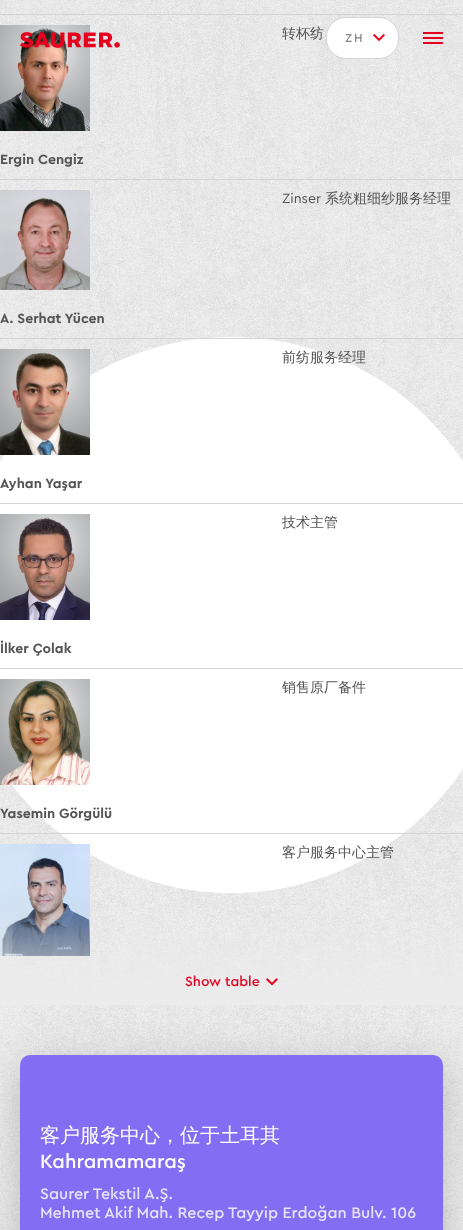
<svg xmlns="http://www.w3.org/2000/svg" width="463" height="1230">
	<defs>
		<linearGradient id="g1" gradientUnits="userSpaceOnUse" x1="232" y1="905" x2="232" y2="1005"><stop offset="0" stop-color="#ECECEC" stop-opacity="0" /><stop offset="1" stop-color="#ECECEC" /></linearGradient>
	</defs>
	<rect width="100%" height="100%" fill="#FFFFFF" />
	<image x="0" y="0" width="463" height="1230" href="assets/img1.png" />
	<rect x="-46" y="337" width="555" height="556" rx="277.5" fill="#FFFFFF" />
	<rect x="0" y="14" width="463" height="1" fill="#D4D4D4" />
	<rect x="0" y="179" width="463" height="1" fill="#D4D4D4" />
	<text x="282" y="38" font-family="WenQuanYi Zen Hei" font-size="14" font-weight="500" fill="#545454">转杯纺</text>
	<image x="0" y="25" width="90" height="106" href="assets/img2.png" />
	<text x="0" y="164" font-family="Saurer" font-size="14" font-weight="700" fill="#545454">Ergin Cengiz</text>
	<rect x="0" y="338" width="463" height="1" fill="#D4D4D4" />
	<text x="282" y="203" font-family="Saurer" font-size="14" fill="#545454">Zinser</text>
	<text x="325" y="203" font-family="WenQuanYi Zen Hei" font-size="14" font-weight="500" fill="#545454">系统粗细纱服务经理</text>
	<image x="0" y="190" width="90" height="100" href="assets/img3.png" />
	<text x="0" y="323" font-family="Saurer" font-size="14" font-weight="700" fill="#545454">A. Serhat Yücen</text>
	<rect x="0" y="503" width="463" height="1" fill="#D4D4D4" />
	<text x="282" y="362" font-family="WenQuanYi Zen Hei" font-size="14" font-weight="500" fill="#545454">前纺服务经理</text>
	<image x="0" y="349" width="90" height="106" href="assets/img4.png" />
	<text x="0" y="488" font-family="Saurer" font-size="14" font-weight="700" fill="#545454">Ayhan Yaşar</text>
	<rect x="0" y="668" width="463" height="1" fill="#D4D4D4" />
	<text x="282" y="527" font-family="WenQuanYi Zen Hei" font-size="14" font-weight="500" fill="#545454">技术主管</text>
	<image x="0" y="514" width="90" height="106" href="assets/img5.png" />
	<text x="0" y="653" font-family="Saurer" font-size="14" font-weight="700" fill="#545454">İlker Çolak</text>
	<rect x="0" y="833" width="463" height="1" fill="#D4D4D4" />
	<text x="282" y="692" font-family="WenQuanYi Zen Hei" font-size="14" font-weight="500" fill="#545454">销售原厂备件</text>
	<image x="0" y="679" width="90" height="106" href="assets/img6.png" />
	<text x="0" y="818" font-family="Saurer" font-size="14" font-weight="700" fill="#545454">Yasemin Görgülü</text>
	<image x="0" y="844" width="90" height="112" href="assets/img7.png" />
	<text x="282" y="857" font-family="WenQuanYi Zen Hei" font-size="14" font-weight="500" fill="#545454">客户服务中心主管</text>
	<rect x="0" y="907" width="463" height="98" fill="url(#g1)" />
	<text x="185" y="986" font-family="Saurer" font-size="14" font-weight="500" fill="#E6001E">Show table</text>
	<image x="266" y="978" width="12" height="8" href="assets/img8.png" />
	<rect x="20" y="1065" width="423" height="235" rx="10" fill="#000000" fill-opacity="0.2" filter="blur(20px)" />
	<rect x="20" y="1055" width="423" height="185" rx="10" fill="#836DF2" />
	<text x="40" y="1142" font-family="WenQuanYi Zen Hei" font-size="20" font-weight="500" fill="#FFFFFF">客户服务中心，位于土耳其</text>
	<text x="40" y="1168" font-family="Saurer" font-size="20" font-weight="500" fill="#FFFFFF">Kahramamaraş</text>
	<g font-family="Saurer" font-size="16" font-weight="500" fill="#E6E2FC">
		<text x="40" y="1199">Saurer Tekstil A.Ş.</text>
		<text x="40" y="1218">Mehmet Akif Mah. Recep Tayyip Erdoğan Bulv. 106</text>
	</g>
	<image x="20" y="32" width="100" height="16" href="assets/img9.png" />
	<rect x="326.5" y="17.5" width="72" height="41" rx="19.5" fill="#FFFFFF" stroke="#D4D4D4" />
	<text x="345" y="42" font-family="Saurer" font-size="12" font-weight="500" letter-spacing="2" fill="#878787">ZH</text>
	<image x="373" y="34" width="12" height="8" href="assets/img10.png" />
	<rect x="423" y="32" width="20" height="2" fill="#E6001E" />
	<rect x="423" y="37" width="20" height="2" fill="#E6001E" />
	<rect x="423" y="42" width="20" height="2" fill="#E6001E" />
</svg>
